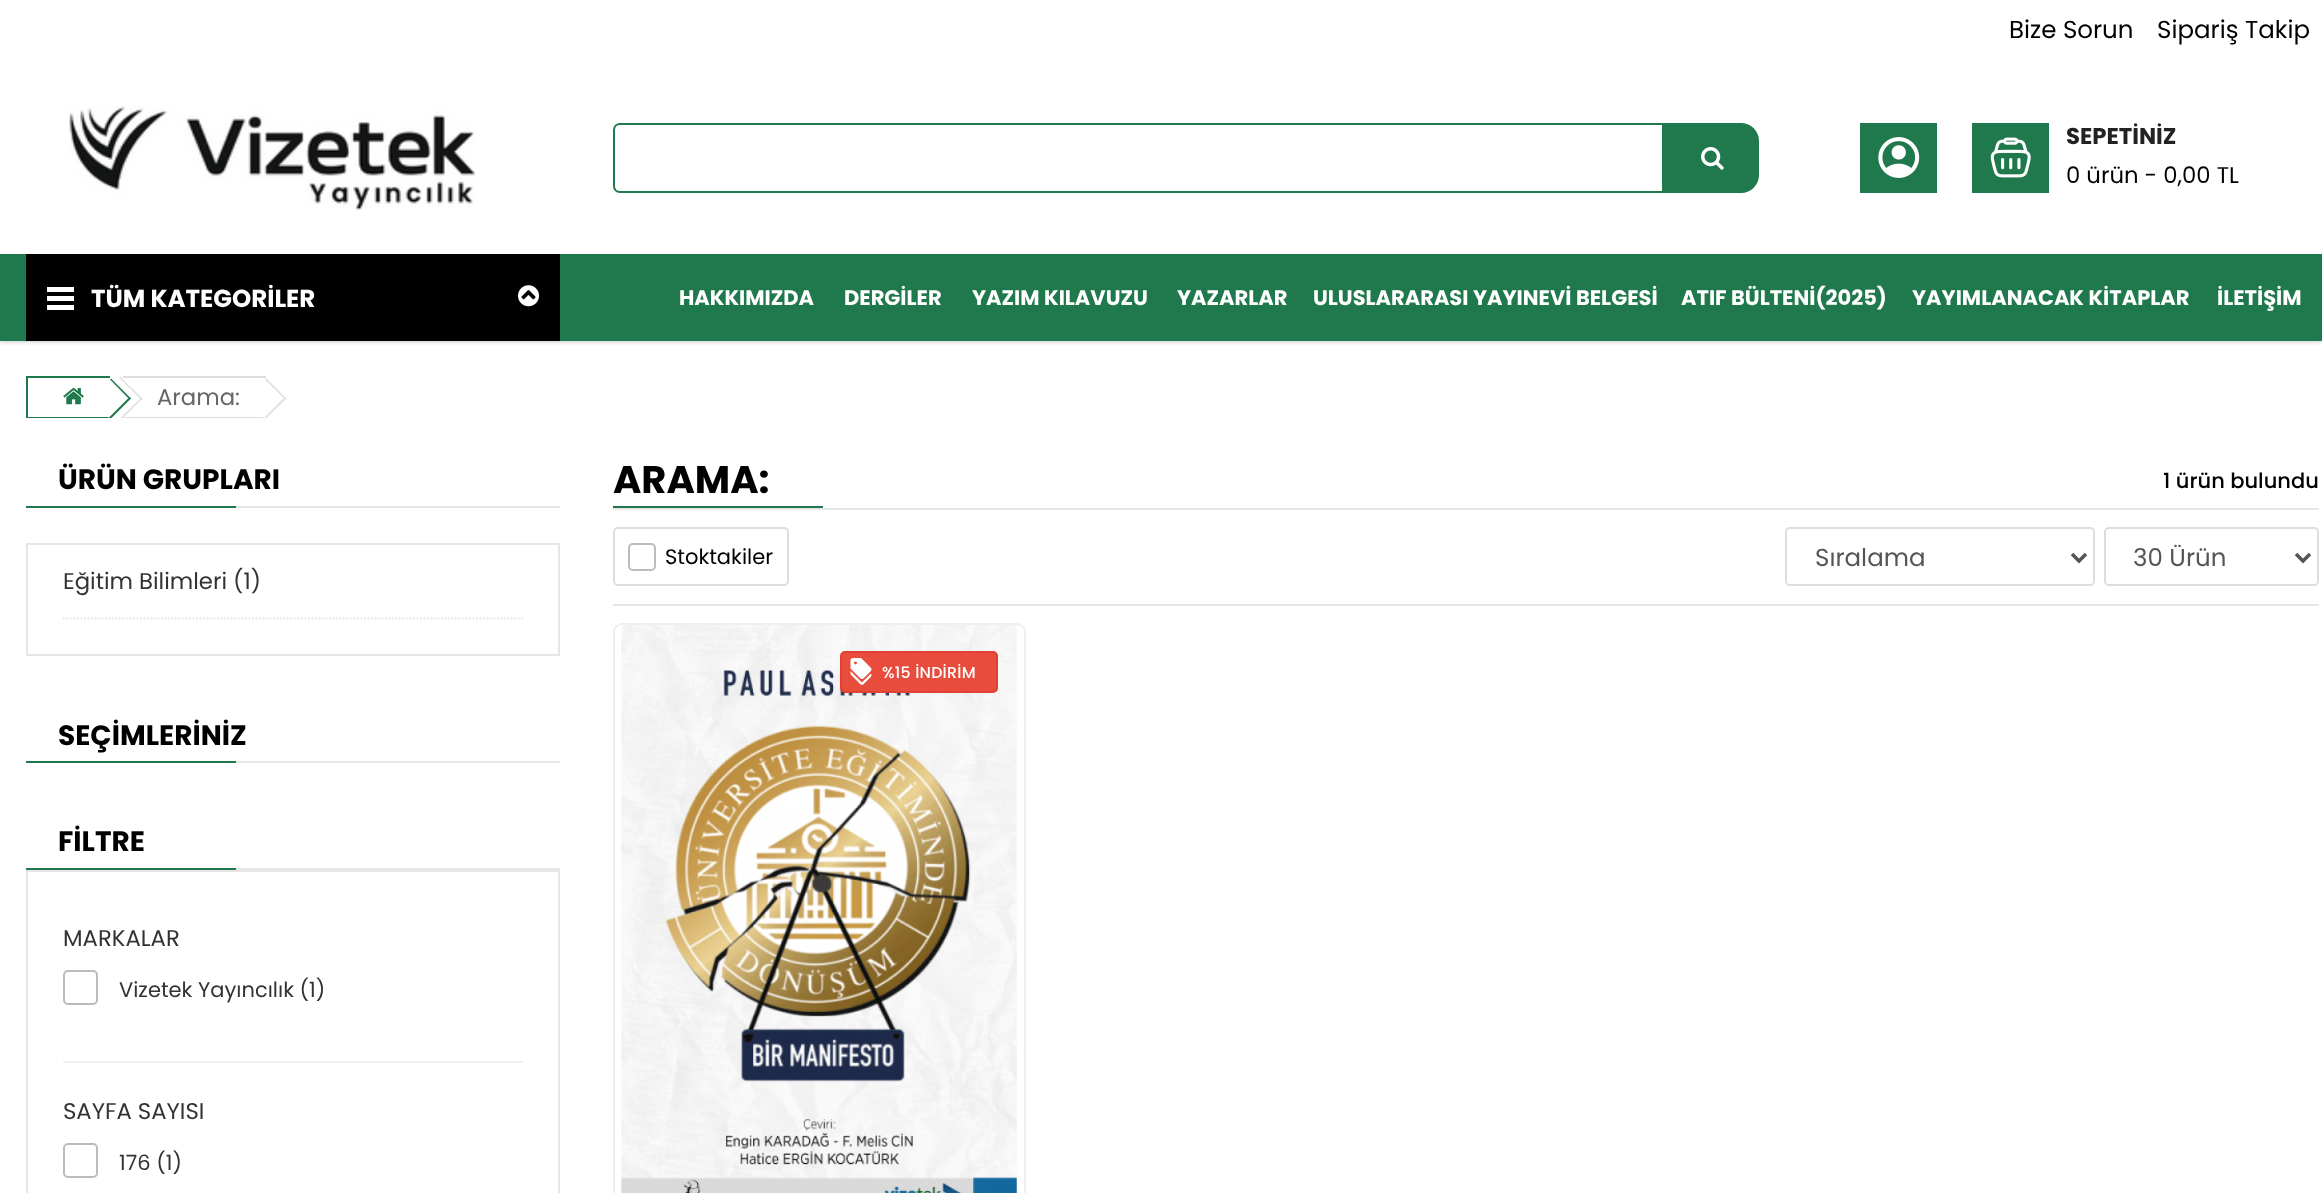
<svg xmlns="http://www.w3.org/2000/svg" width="2322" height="1193">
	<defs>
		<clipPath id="clip1"><rect x="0" y="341" width="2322" height="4" /></clipPath>
		<clipPath id="clip2"><rect x="26" y="376" width="2293" height="42" /></clipPath>
	</defs>
	<rect width="100%" height="100%" fill="#FFFFFF" />
	<g clip-path="url(#clip1)">
		<rect x="0" y="0" width="2322" height="341" fill="#000000" fill-opacity="0.3" filter="blur(2.5px)" />
	</g>
	<g font-family="Poppins" font-size="24.5" fill="#000000">
		<text x="2009" y="38">Bize Sorun</text>
		<text x="2157" y="38">Sipariş Takip</text>
	</g>
	<image x="69" y="106" width="407" height="104" href="assets/img1.png" />
	<path d="M620 124H1663V192H620C616.5 192 614 189.5 614 186V130C614 126.5 616.5 124 620 124Z" fill="none" stroke="#20794D" stroke-width="2" />
	<path d="M1664 123H1741C1751 123 1759 131 1759 141V175C1759 185 1751 193 1741 193H1664Z" fill="#20794D" />
	<image x="1701" y="147" width="23" height="23" href="assets/img2.png" />
	<rect x="1860" y="123" width="77" height="70" fill="#20794D" />
	<image x="1878" y="137" width="42" height="41" href="assets/img3.png" />
	<rect x="1972" y="123" width="77" height="70" fill="#20794D" />
	<image x="1990" y="137" width="41" height="41" href="assets/img4.png" />
	<text x="2066" y="144" font-family="Poppins" font-size="22.75" font-weight="700" fill="#222222">SEPETİNİZ</text>
	<text x="2066" y="183" font-family="Poppins" font-size="22.75" fill="#000000">0 ürün - 0,00 TL</text>
	<rect x="0" y="254" width="2322" height="87" fill="#20794D" />
	<rect x="26" y="254" width="534" height="87" fill="#000000" />
	<rect x="47" y="287" width="27" height="5" fill="#FFFFFF" />
	<rect x="47" y="296" width="27" height="5" fill="#FFFFFF" />
	<rect x="47" y="305" width="27" height="5" fill="#FFFFFF" />
	<text x="91" y="307" font-family="Poppins" font-size="24.5" font-weight="700" fill="#FFFFFF">TÜM KATEGORİLER</text>
	<image x="518" y="285" width="21" height="22" href="assets/img5.png" />
	<g font-family="Poppins" font-size="21" font-weight="700" fill="#FFFFFF">
		<text x="679" y="305">HAKKIMIZDA</text>
		<text x="844" y="305">DERGİLER</text>
		<text x="972" y="305">YAZIM KILAVUZU</text>
		<text x="1177" y="305">YAZARLAR</text>
		<text x="1313" y="305">ULUSLARARASI YAYINEVİ BELGESİ</text>
		<text x="1681" y="305">ATIF BÜLTENİ(2025)</text>
		<text x="1912" y="305">YAYIMLANACAK KİTAPLAR</text>
		<text x="2217" y="305">İLETİŞİM</text>
	</g>
	<rect x="26" y="376" width="84" height="2" fill="#20794D" />
	<rect x="26" y="417" width="84" height="1" fill="#20794D" />
	<rect x="26" y="376" width="2" height="42" fill="#20794D" />
	<image x="63" y="388" width="21" height="17" href="assets/img6.png" />
	<rect x="123" y="417" width="143" height="1" fill="#DDDDDD" />
	<rect x="123" y="376" width="143" height="2" fill="#DDDDDD" />
	<g clip-path="url(#clip2)">
		<path d="M143 399L121 420L99 397L120 376Z" fill="#FFFFFF" />
		<path d="M142.5 398.5L121.5 419.5L120 418.5L141.5 397.5Z" fill="#E1E1E1" />
	</g>
	<path d="M142.5 398.5L141.5 400L119 377.5L120 376.5Z" fill="#E1E1E1" />
	<path d="M111 378L131 398L110 419L90 400Z" fill="#FFFFFF" />
	<path d="M111 378.5L131 398.5L129.5 399.5L110 379.5Z" fill="#20794D" />
	<g clip-path="url(#clip2)">
		<path d="M129.5 397L131 398.5L110 419.5L108.5 418Z" fill="#20794D" />
	</g>
	<text x="157" y="405" font-family="Poppins" font-size="22.75" fill="#666666">Arama:</text>
	<path d="M266 378L286 398L265 419L245 400Z" fill="#FFFFFF" />
	<path d="M266.5 378.5L286.5 398.5L285 399.5L265 379.5Z" fill="#E1E1E1" />
	<g clip-path="url(#clip2)">
		<path d="M285 397L286.5 398.5L265 419.5L264 418Z" fill="#E1E1E1" />
	</g>
	<rect x="236" y="506" width="324" height="2" fill="#E6E6E6" />
	<text x="58" y="489" font-family="Poppins" font-size="28" font-weight="700" fill="#000000">ÜRÜN GRUPLARI</text>
	<rect x="26" y="506" width="210" height="2" fill="#20794D" />
	<rect x="27" y="544" width="532" height="111" fill="none" stroke="#E6E6E6" stroke-width="2" />
	<path d="M63 618.5H523" fill="none" stroke="#E4E4E4" stroke-width="1.8" stroke-dasharray="1.75 1.75" />
	<text x="63" y="589" font-family="Poppins" font-size="22.75" fill="#333333">Eğitim Bilimleri (1)</text>
	<rect x="236" y="761" width="324" height="2" fill="#E6E6E6" />
	<text x="58" y="745" font-family="Poppins" font-size="28" font-weight="700" fill="#000000">SEÇİMLERİNİZ</text>
	<rect x="26" y="761" width="210" height="2" fill="#20794D" />
	<rect x="236" y="868" width="324" height="2" fill="#E6E6E6" />
	<text x="58" y="851" font-family="Poppins" font-size="28" font-weight="700" fill="#000000">FİLTRE</text>
	<rect x="26" y="868" width="210" height="2" fill="#20794D" />
	<rect x="27" y="871" width="532" height="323" fill="none" stroke="#E6E6E6" stroke-width="2" />
	<rect x="63" y="1061" width="460" height="2" fill="#F1F1F1" />
	<text x="63" y="946" font-family="Poppins" font-size="22.75" fill="#333333">MARKALAR</text>
	<rect x="64" y="971" width="33" height="33" rx="4" fill="none" stroke="#BBBBBB" stroke-width="2" />
	<text x="119" y="997" font-family="Poppins" font-size="21" fill="#333333">Vizetek Yayıncılık (1)</text>
	<text x="63" y="1119" font-family="Poppins" font-size="22.75" fill="#333333">SAYFA SAYISI</text>
	<rect x="64" y="1144" width="33" height="33" rx="4" fill="none" stroke="#BBBBBB" stroke-width="2" />
	<text x="119" y="1170" font-family="Poppins" font-size="21" fill="#333333">176 (1)</text>
	<rect x="613" y="508" width="1706" height="2" fill="#E6E6E6" />
	<text x="613" y="493" font-family="Poppins" font-size="38.5" font-weight="700" fill="#000000">ARAMA:</text>
	<rect x="613" y="506" width="210" height="2" fill="#20794D" />
	<text x="2163" y="488" font-family="Poppins" font-size="21" font-weight="500" fill="#000000">1 ürün bulundu</text>
	<rect x="613" y="604" width="1706" height="2" fill="#E6E6E6" />
	<rect x="614" y="528" width="174" height="57" rx="4" fill="none" stroke="#DDDDDD" stroke-width="2" />
	<rect x="629" y="544" width="26" height="26" rx="4" fill="none" stroke="#BBBBBB" stroke-width="2" />
	<text x="665" y="564" font-family="Poppins" font-size="21" fill="#000000">Stoktakiler</text>
	<rect x="1786" y="528" width="308" height="57" rx="4" fill="none" stroke="#DDDDDD" stroke-width="2" />
	<path d="M2072 554L2079 561L2086 554" fill="none" stroke="#555555" stroke-width="3.5" />
	<text x="1815" y="566" font-family="Poppins" font-size="24.5" fill="#555555">Sıralama</text>
	<rect x="2105" y="528" width="213" height="57" rx="4" fill="none" stroke="#DDDDDD" stroke-width="2" />
	<path d="M2296 554L2303 561L2310 554" fill="none" stroke="#555555" stroke-width="3.5" />
	<text x="2133" y="566" font-family="Poppins" font-size="24.5" fill="#555555">30 Ürün</text>
	<rect x="614" y="624" width="411" height="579" rx="8" fill="none" stroke="#EFEFEF" stroke-width="2" />
	<image x="621" y="625" width="396" height="568" href="assets/img7.png" />
	<rect x="841" y="652" width="156" height="40" rx="4" fill="#E74C3C" stroke="#E24030" stroke-width="2" />
	<image x="850" y="658" width="22" height="27" href="assets/img8.png" />
	<text x="882" y="678" font-family="Poppins" font-size="15.75" font-weight="500" letter-spacing="0.25" fill="#FFFFFF">%15 İNDİRİM</text>
</svg>
